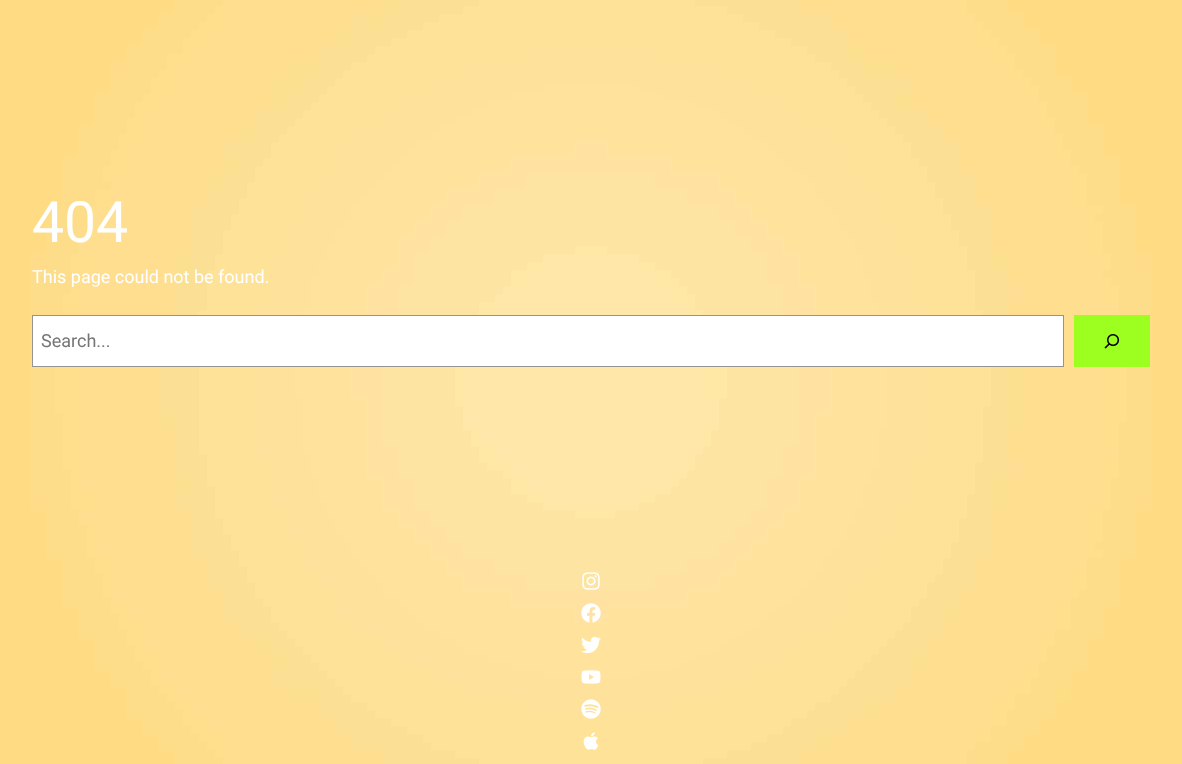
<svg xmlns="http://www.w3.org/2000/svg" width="1182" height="764">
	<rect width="100%" height="100%" fill="#FFFFFF" />
	<image x="0" y="0" width="1182" height="764" href="assets/img1.png" />
	<text x="32" y="242" font-family="Roboto" font-size="57" fill="#FFFFFF">404</text>
	<text x="32" y="283" font-family="Roboto" font-size="18" fill="#FFFFFF">This page could not be found.</text>
	<rect x="32.5" y="315.5" width="1031" height="51" fill="#FFFFFF" stroke="#949494" />
	<text x="41" y="347" font-family="Roboto" font-size="18" fill="#757575">Search...</text>
	<rect x="1074" y="315" width="76" height="52" fill="#9DFF20" />
	<image x="1104" y="334" width="16" height="15" href="assets/img2.png" />
	<image x="582" y="572" width="18" height="18" href="assets/img3.png" />
	<image x="581" y="603" width="20" height="20" href="assets/img4.png" />
	<image x="581" y="636" width="20" height="18" href="assets/img5.png" />
	<image x="581" y="670" width="20" height="14" href="assets/img6.png" />
	<image x="581" y="699" width="20" height="20" href="assets/img7.png" />
	<image x="583" y="732" width="16" height="18" href="assets/img8.png" />
</svg>
